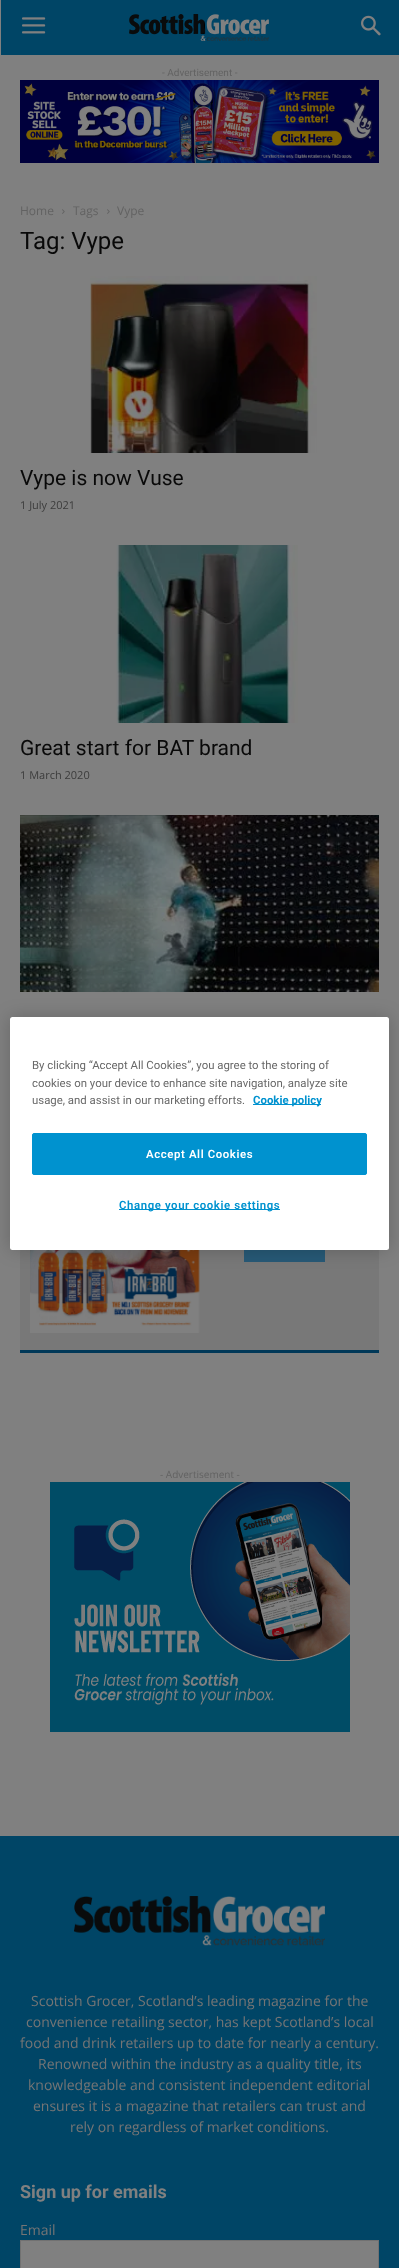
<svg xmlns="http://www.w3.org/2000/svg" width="399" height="2268">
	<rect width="100%" height="100%" fill="#808080" />
	<rect x="1" y="0" width="398" height="55" fill="#004566" />
	<image x="22" y="17" width="24" height="17" href="assets/img1.png" />
	<image x="129" y="14" width="140" height="27" href="assets/img2.png" />
	<image x="361" y="15" width="20" height="21" href="assets/img3.png" />
	<text x="162" y="76" font-family="Roboto" font-size="10" fill="#626262">- Advertisement -</text>
	<image x="20" y="80" width="359" height="83" href="assets/img4.png" />
	<text x="20" y="215" font-family="Open Sans" font-size="12" fill="#626262">Home</text>
	<image x="62" y="209" width="3" height="5" href="assets/img5.png" />
	<text x="73" y="215" font-family="Open Sans" font-size="12" fill="#626262">Tags</text>
	<image x="107" y="209" width="3" height="5" href="assets/img5.png" />
	<text x="117" y="215" font-family="Open Sans" font-size="12" fill="#626262">Vype</text>
	<text x="20" y="249" font-family="Roboto" font-size="24" fill="#090909">Tag: Vype</text>
	<image x="90" y="276" width="227" height="177" href="assets/img6.png" />
	<text x="20" y="485" font-family="Roboto" font-size="21" fill="#090909">Vype is now Vuse</text>
	<text x="20" y="509" font-family="Open Sans" font-size="11" fill="#3B3B3B">1 July 2021</text>
	<image x="116" y="545" width="182" height="178" href="assets/img7.png" />
	<text x="20" y="755" font-family="Roboto" font-size="21" fill="#090909">Great start for BAT brand</text>
	<text x="20" y="779" font-family="Open Sans" font-size="11" fill="#3B3B3B">1 March 2020</text>
	<image x="20" y="815" width="359" height="177" href="assets/img8.png" />
	<rect x="20" y="1250" width="359" height="100" fill="#787878" />
	<rect x="20" y="1350" width="359" height="3" fill="#003858" />
	<image x="30" y="1250" width="170" height="83" href="assets/img9.png" />
	<rect x="244" y="1250" width="81" height="12" fill="#275976" />
	<text x="160" y="1478" font-family="Open Sans" font-size="10" fill="#626262">- Advertisement -</text>
	<image x="50" y="1482" width="300" height="250" href="assets/img10.png" />
	<rect x="0" y="1836" width="399" height="432" fill="#004566" />
	<image x="74" y="1896" width="251" height="50" href="assets/img11.png" />
	<g font-family="Open Sans" font-size="14" fill="#757575">
		<text x="31" y="2006">Scottish Grocer, Scotland’s leading magazine for the</text>
		<text x="26" y="2027">convenience retailing sector, has kept Scotland’s local</text>
		<text x="20" y="2048">food and drink retailers up to date for nearly a century.</text>
		<text x="38" y="2069">Renowned within the industry as a quality title, its</text>
		<text x="28" y="2090">knowledgeable and consistent independent editorial</text>
		<text x="33" y="2111">ensures it is a magazine that retailers can trust and</text>
		<text x="70" y="2132">rely on regardless of market conditions.</text>
	</g>
	<text x="20" y="2198" font-family="Roboto" font-size="18" font-weight="700" fill="#808080">Sign up for emails</text>
	<text x="20" y="2235" font-family="Open Sans" font-size="14" fill="#757575">Email</text>
	<rect x="20.5" y="2240.5" width="358" height="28" fill="#808080" stroke="#717171" />
	<rect x="10" y="1017" width="379" height="233" rx="2.5" fill="#000000" fill-opacity="0.2" filter="blur(9px)" />
	<rect x="10" y="1017" width="379" height="233" rx="2.5" fill="#FFFFFF" />
	<g font-family="Roboto" font-size="11.4" fill="#696969">
		<text x="32" y="1069">By clicking “Accept All Cookies”, you agree to the storing of</text>
		<text x="32" y="1087">cookies on your device to enhance site navigation, analyze site</text>
		<text x="32" y="1104">usage, and assist in our marketing efforts.</text>
	</g>
	<rect x="253" y="1104" width="68" height="1" fill="#0092CF" />
	<text x="253" y="1104" font-family="Roboto" font-size="11.4" font-weight="700" fill="#0092CF">Cookie policy</text>
	<rect x="32.5" y="1133.5" width="334" height="41" rx="1.5" fill="#0092CF" stroke="#0092CF" />
	<text x="146" y="1158" font-family="Roboto" font-size="11.4" font-weight="600" letter-spacing="0.6" fill="#FFFFFF">Accept All Cookies</text>
	<rect x="119" y="1209" width="161" height="1" fill="#0092CF" />
	<text x="119" y="1209" font-family="Roboto" font-size="11.4" font-weight="600" letter-spacing="0.6" fill="#0092CF">Change your cookie settings</text>
</svg>
